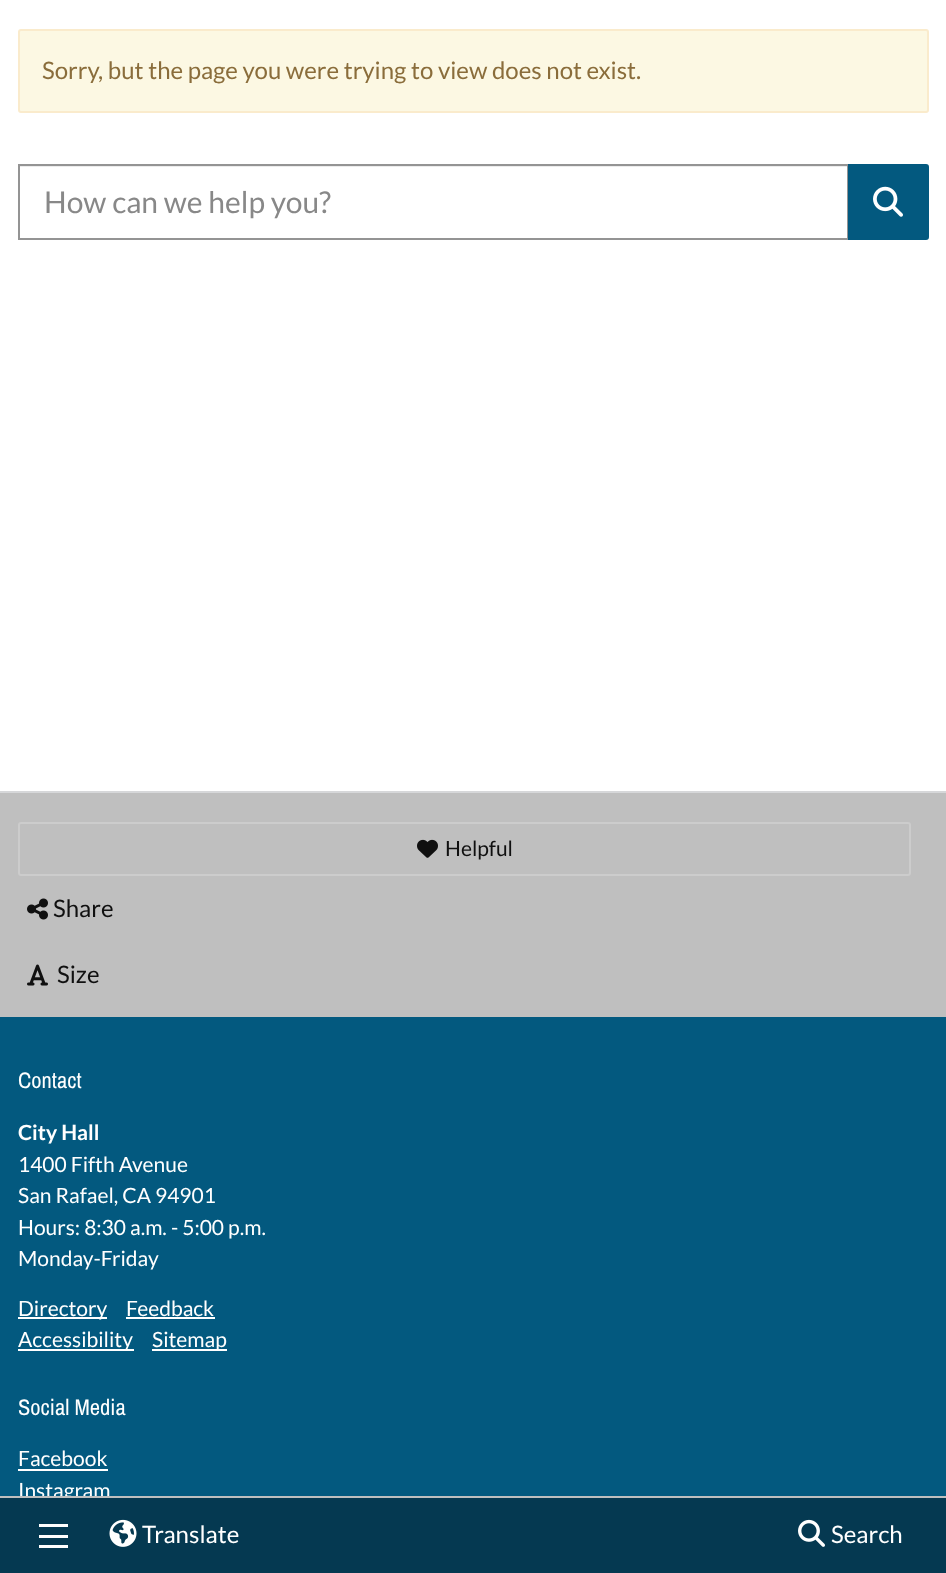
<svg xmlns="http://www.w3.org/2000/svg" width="946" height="1573">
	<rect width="100%" height="100%" fill="#FFFFFF" />
	<rect x="19" y="30" width="909" height="82" rx="2" fill="#FCF8E3" stroke="#FAEBCC" stroke-width="2" />
	<text x="42" y="79" font-family="Lato" font-size="24" fill="#8A6D3B">Sorry, but the page you were trying to view does not exist.</text>
	<rect x="20" y="166" width="828" height="1" fill="#ECECEC" />
	<rect x="19" y="165" width="829" height="74" fill="none" stroke="#949494" stroke-width="2" />
	<text x="44" y="213" font-family="Lato" font-size="30" fill="#888888">How can we help you?</text>
	<path d="M849 165H926C927 165 928 166 928 167V237C928 238 927 239 926 239H849Z" fill="#03597F" stroke="#03597F" stroke-width="2" />
	<image x="873" y="186" width="30" height="31" href="assets/img1.png" />
	<rect x="0" y="793" width="946" height="224" fill="#BFBFBF" />
	<rect x="0" y="791" width="946" height="2" fill="#D6D7D9" />
	<rect x="19" y="823" width="891" height="52" rx="2" fill="none" stroke="#CCCCCC" stroke-width="2" />
	<image x="417" y="839" width="21" height="19" href="assets/img2.png" />
	<text x="445" y="856" font-family="Lato" font-size="21" fill="#101010">Helpful</text>
	<image x="27" y="898" width="21" height="22" href="assets/img3.png" />
	<text x="53" y="917" font-family="Lato" font-size="24" fill="#101010">Share</text>
	<image x="27" y="964" width="21" height="22" href="assets/img4.png" />
	<text x="57" y="983" font-family="Lato" font-size="24" fill="#101010">Size</text>
	<rect x="0" y="1017" width="946" height="479" fill="#03597F" />
	<text x="18" y="1088" font-family="Archivo Narrow" font-size="22.5" fill="#FFFFFF">Contact</text>
	<text x="18" y="1140" font-family="Lato" font-size="21" font-weight="700" fill="#FFFFFF">City Hall</text>
	<g font-family="Lato" font-size="21" fill="#FFFFFF">
		<text x="18" y="1172">1400 Fifth Avenue</text>
		<text x="18" y="1203">San Rafael, CA 94901</text>
		<text x="18" y="1235">Hours: 8:30 a.m. - 5:00 p.m.</text>
		<text x="18" y="1266">Monday-Friday</text>
	</g>
	<rect x="18" y="1317" width="89" height="2" fill="#FFFFFF" />
	<g font-family="Lato" font-size="21" fill="#FFFFFF">
		<text x="18" y="1316">Directory</text>
		<text x="126" y="1316">Feedback</text>
	</g>
	<rect x="126" y="1317" width="89" height="2" fill="#FFFFFF" />
	<rect x="18" y="1349" width="116" height="2" fill="#FFFFFF" />
	<text x="18" y="1347" font-family="Lato" font-size="21" fill="#FFFFFF">Accessibility</text>
	<rect x="152" y="1349" width="75" height="2" fill="#FFFFFF" />
	<text x="152" y="1347" font-family="Lato" font-size="21" fill="#FFFFFF">Sitemap</text>
	<text x="18" y="1415" font-family="Archivo Narrow" font-size="22.5" fill="#FFFFFF">Social Media</text>
	<text x="18" y="1466" font-family="Lato" font-size="21" fill="#FFFFFF">Facebook</text>
	<rect x="18" y="1469" width="90" height="2" fill="#FFFFFF" />
	<text x="18" y="1498" font-family="Lato" font-size="21" fill="#FFFFFF">Instagram</text>
	<rect x="0" y="1498" width="946" height="75" fill="#053951" />
	<rect x="39" y="1535" width="29" height="3" fill="#FFFFFF" />
	<rect x="39" y="1524" width="29" height="3" fill="#FFFFFF" />
	<rect x="39" y="1545" width="29" height="3" fill="#FFFFFF" />
	<rect x="0" y="1496" width="946" height="2" fill="#BFBFBF" />
	<image x="109" y="1519" width="28" height="28" href="assets/img5.png" />
	<text x="142" y="1543" font-family="Lato" font-size="24" fill="#FFFFFF">Translate</text>
	<image x="798" y="1519" width="27" height="28" href="assets/img6.png" />
	<text x="831" y="1543" font-family="Lato" font-size="24" fill="#FFFFFF">Search</text>
</svg>
